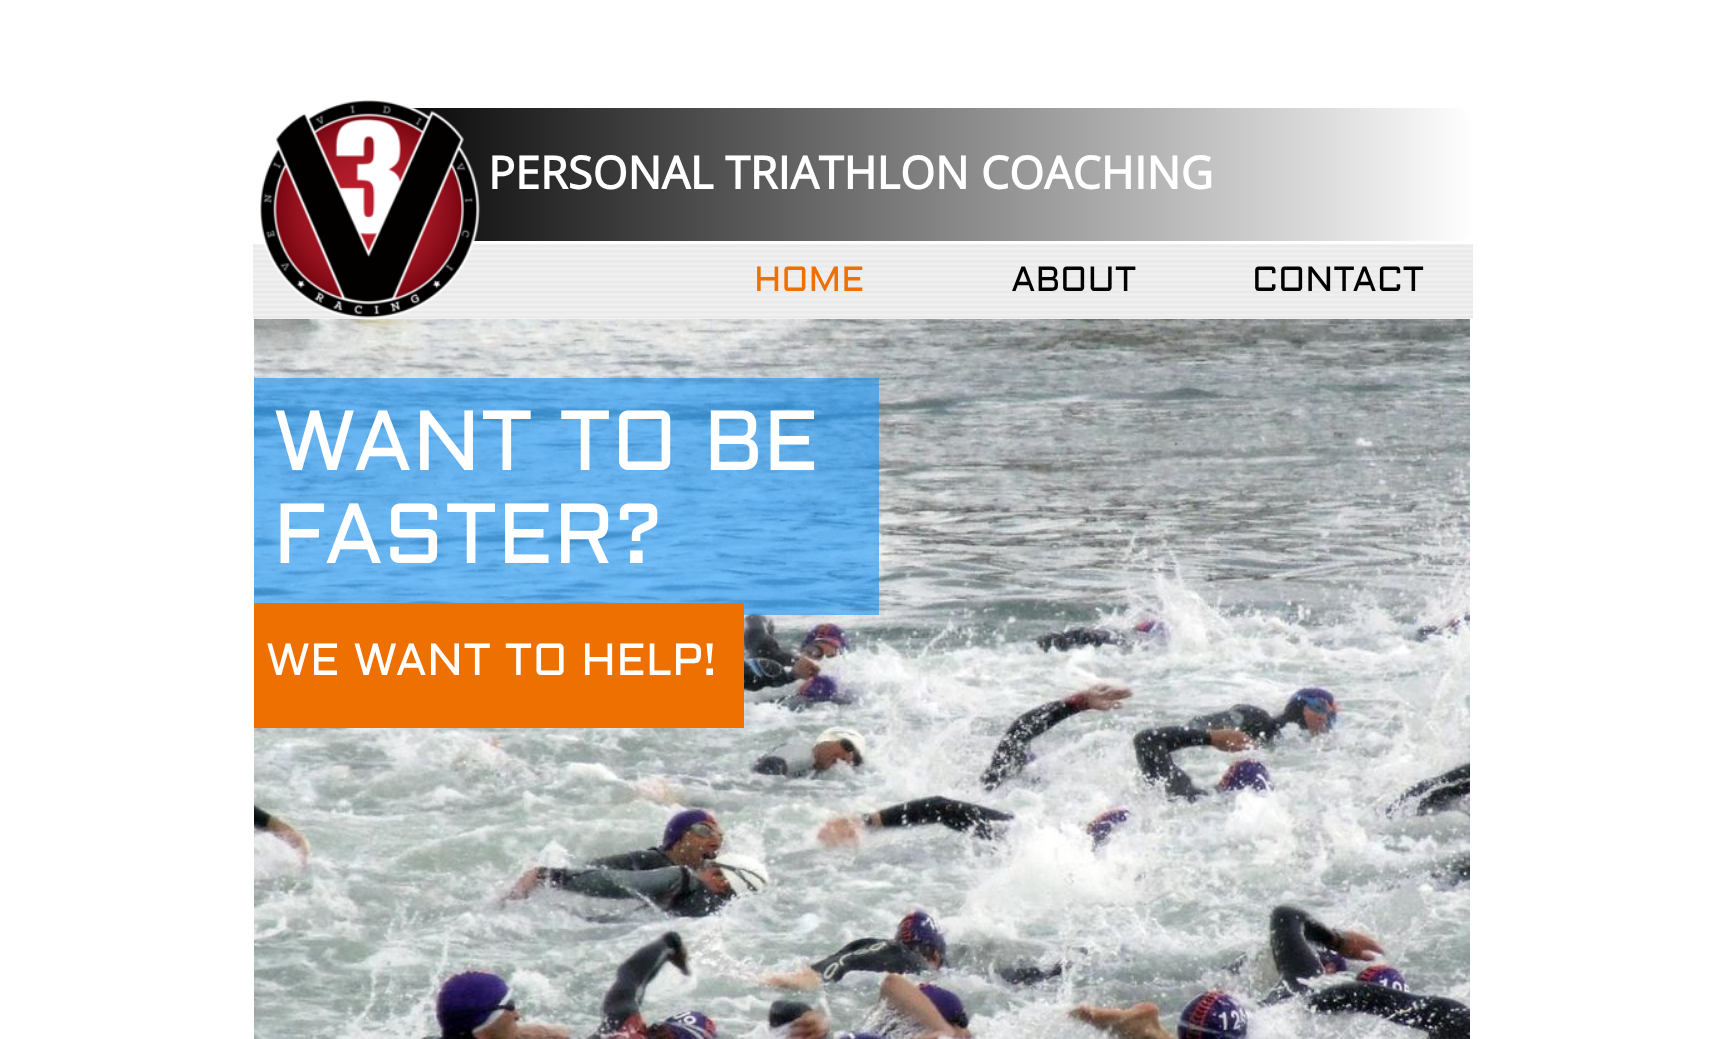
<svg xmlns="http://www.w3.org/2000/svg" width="1718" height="1039">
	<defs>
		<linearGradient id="g1" gradientUnits="userSpaceOnUse" x1="366" y1="174" x2="1475" y2="174"><stop offset="0" stop-color="#000000" /><stop offset="1" stop-color="#FFFFFF" /></linearGradient>
	</defs>
	<rect width="100%" height="100%" fill="#FFFFFF" />
	<rect x="366" y="108" width="1109" height="133" rx="19" fill="url(#g1)" />
	<image x="253" y="244" width="1220" height="75" href="assets/img2.png" />
	<image x="254" y="319" width="1216" height="720" href="assets/img3.png" />
	<image x="260" y="100" width="221" height="220" href="assets/img1.png" />
	<text x="488" y="189" font-family="Open Sans" font-size="45" font-weight="700" fill="#FFFFFF">PERSONAL TRIATHLON COACHING</text>
	<text x="754" y="291" font-family="Aldrich" font-size="35" fill="#ED7000">HOME</text>
	<g font-family="Aldrich" font-size="35" fill="#000000">
		<text x="1011" y="291">ABOUT</text>
		<text x="1252" y="291">CONTACT</text>
	</g>
	<rect x="254" y="378" width="625" height="237" fill="#1594F8" fill-opacity="0.6" />
	<g font-family="Aldrich" font-size="85" fill="#FFFFFF">
		<text x="273" y="470">WANT TO BE</text>
		<text x="273" y="563">FASTER?</text>
	</g>
	<rect x="254" y="603" width="490" height="125" fill="#ED7000" />
	<text x="266" y="675" font-family="Aldrich" font-size="45" fill="#FFFFFF">WE WANT TO HELP!</text>
</svg>
